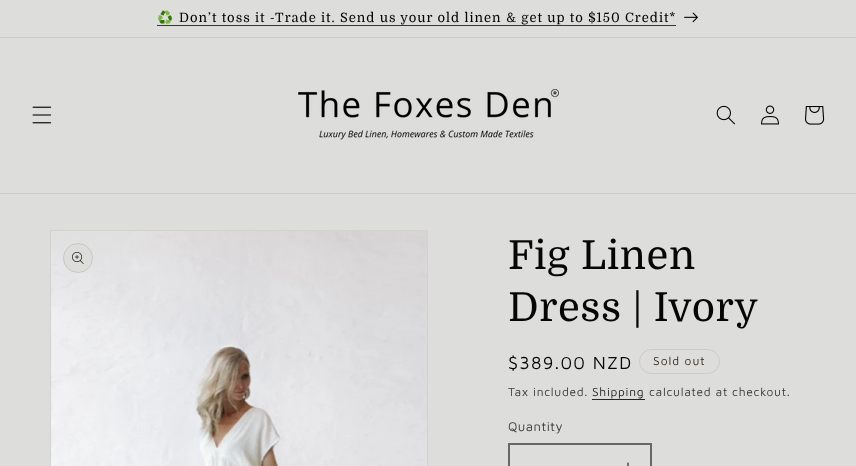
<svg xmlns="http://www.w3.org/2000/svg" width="856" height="466">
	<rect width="100%" height="100%" fill="#DDDDDC" />
	<rect x="0" y="37" width="856" height="1" fill="#CBCBCA" />
	<text x="157" y="22" font-family="Noto Color Emoji" font-size="13" letter-spacing="1" fill="#000000">♻️</text>
	<rect x="157" y="25" width="519" height="1" fill="#373737" />
	<text x="179" y="22" font-family="Domine" font-size="13" letter-spacing="1" fill="#000000">Don’t toss it -Trade it. Send us your old linen &amp; get up to $150 Credit*</text>
	<image x="684" y="12" width="14" height="11" href="assets/img1.png" />
	<rect x="0" y="193" width="856" height="1" fill="#CBCBCA" />
	<image x="32" y="106" width="20" height="18" href="assets/img2.png" />
	<image x="298" y="89" width="261" height="51" href="assets/img3.png" />
	<image x="716" y="105" width="19" height="20" href="assets/img4.png" />
	<image x="761" y="105" width="18" height="20" href="assets/img5.png" />
	<image x="805" y="106" width="20" height="19" href="assets/img6.png" />
	<rect x="50.5" y="230.5" width="377" height="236" fill="none" stroke="#D2D2D1" />
	<image x="51" y="231" width="376" height="235" href="assets/img7.png" />
	<circle cx="78" cy="258" r="15" fill="#DDDDDC" />
	<circle cx="78" cy="258" r="14.5" fill="none" stroke="#060606" stroke-opacity="0.1" />
	<image x="72" y="252" width="12" height="12" href="assets/img8.png" />
	<g font-family="Domine" font-size="40" letter-spacing="0.6" fill="#060606">
		<text x="508" y="269">Fig Linen</text>
		<text x="508" y="321">Dress | Ivory</text>
	</g>
	<text x="508" y="369" font-family="Maven Pro" font-size="18" letter-spacing="1.25" fill="#060606">$389.00 NZD</text>
	<rect x="639.5" y="349.5" width="80" height="24" rx="12" fill="none" stroke="#CDCBC9" />
	<text x="653" y="365" font-family="Maven Pro" font-size="12" letter-spacing="1" fill="#382A20">Sold out</text>
	<text x="508" y="396" font-family="Maven Pro" font-size="12" letter-spacing="0.7" fill="#3C3C3C">Tax included.</text>
	<text x="592" y="396" font-family="Maven Pro" font-size="12" letter-spacing="0.7" fill="#262626">Shipping</text>
	<rect x="592" y="399" width="53" height="1" fill="#262626" />
	<text x="649" y="396" font-family="Maven Pro" font-size="12" letter-spacing="0.7" fill="#3C3C3C">calculated at checkout.</text>
	<text x="508" y="431" font-family="Maven Pro" font-size="13" letter-spacing="0.5" fill="#3C3C3C">Quantity</text>
	<image x="627" y="462" width="2" height="4" href="assets/img9.png" />
	<rect x="509" y="444" width="142" height="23" fill="none" stroke="#676766" stroke-width="2" />
</svg>
